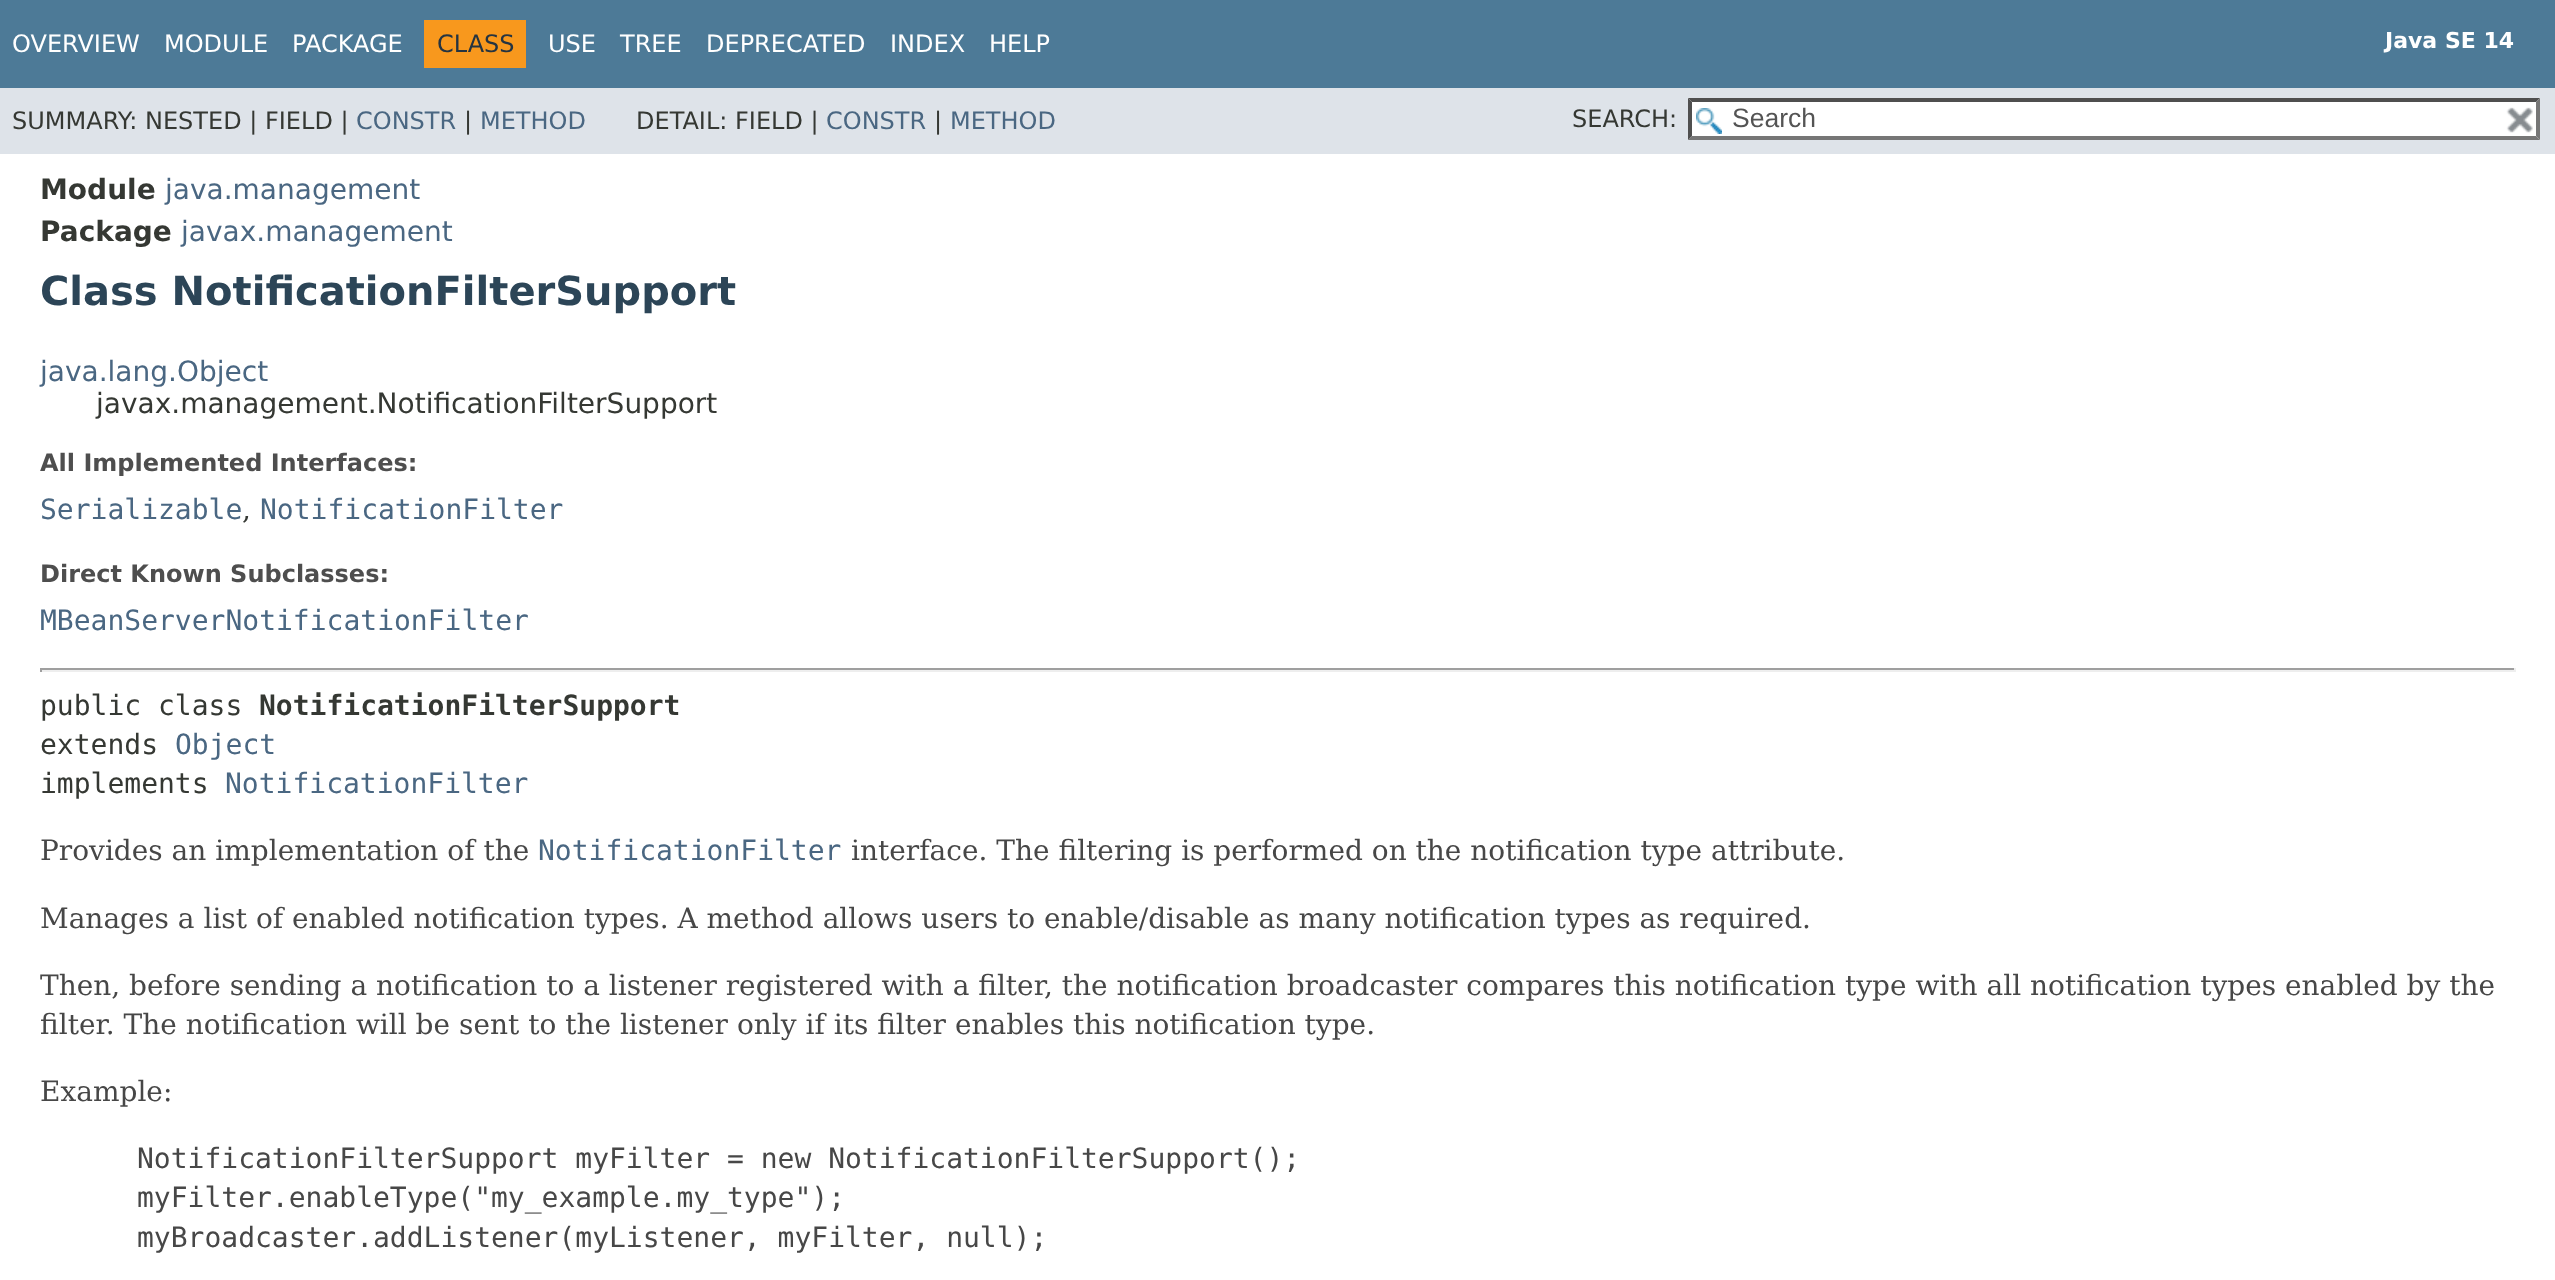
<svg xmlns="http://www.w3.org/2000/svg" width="2555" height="1280">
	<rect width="100%" height="100%" fill="#FFFFFF" />
	<rect x="0" y="0" width="2555" height="88" fill="#4D7A97" />
	<g font-family="DejaVu Sans" font-size="24" fill="#FFFFFF">
		<text x="12" y="52">OVERVIEW</text>
		<text x="164" y="52">MODULE</text>
		<text x="292" y="52">PACKAGE</text>
	</g>
	<rect x="424" y="20" width="102" height="48" fill="#F8981D" />
	<text x="437" y="52" font-family="DejaVu Sans" font-size="24" fill="#253441">CLASS</text>
	<g font-family="DejaVu Sans" font-size="24" fill="#FFFFFF">
		<text x="548" y="52">USE</text>
		<text x="620" y="52">TREE</text>
		<text x="706" y="52">DEPRECATED</text>
		<text x="890" y="52">INDEX</text>
		<text x="989" y="52">HELP</text>
	</g>
	<text x="2385" y="48" font-family="DejaVu Sans" font-size="22" font-weight="700" fill="#FFFFFF">Java SE 14</text>
	<rect x="0" y="88" width="2555" height="66" fill="#DEE3E9" />
	<text x="12" y="129" font-family="DejaVu Sans" font-size="24" fill="#353833">SUMMARY: NESTED | FIELD |</text>
	<text x="356" y="129" font-family="DejaVu Sans" font-size="24" fill="#4A6782">CONSTR</text>
	<text x="464" y="129" font-family="DejaVu Sans" font-size="24" fill="#353833">|</text>
	<text x="480" y="129" font-family="DejaVu Sans" font-size="24" fill="#4A6782">METHOD</text>
	<text x="636" y="129" font-family="DejaVu Sans" font-size="24" fill="#353833">DETAIL: FIELD |</text>
	<text x="826" y="129" font-family="DejaVu Sans" font-size="24" fill="#4A6782">CONSTR</text>
	<text x="934" y="129" font-family="DejaVu Sans" font-size="24" fill="#353833">|</text>
	<text x="950" y="129" font-family="DejaVu Sans" font-size="24" fill="#4A6782">METHOD</text>
	<text x="1572" y="127" font-family="DejaVu Sans" font-size="24" fill="#353833">SEARCH:</text>
	<rect x="1688" y="98" width="852" height="42" fill="#FFFFFF" />
	<image x="1696" y="108" width="26" height="26" href="assets/img1.png" />
	<path d="M1688 98H2540L2536 102H1692Z" fill="#4F4F4F" />
	<path d="M2540 98V140L2536 136V102Z" fill="#767676" />
	<path d="M2540 140H1688L1692 136H2536Z" fill="#767676" />
	<path d="M1688 140V98L1692 102V136Z" fill="#4F4F4F" />
	<text x="1732" y="127" font-family="Liberation Sans" font-size="26.5" fill="#545454">Search</text>
	<image x="2506" y="107" width="27" height="26" href="assets/img2.png" />
	<text x="40" y="199" font-family="DejaVu Sans" font-size="28" font-weight="700" fill="#353833">Module</text>
	<text x="165" y="199" font-family="DejaVu Sans" font-size="28" fill="#4A6782">java.management</text>
	<text x="40" y="241" font-family="DejaVu Sans" font-size="28" font-weight="700" fill="#353833">Package</text>
	<text x="181" y="241" font-family="DejaVu Sans" font-size="28" fill="#4A6782">javax.management</text>
	<text x="40" y="305" font-family="DejaVu Sans" font-size="40" font-weight="700" fill="#2C4557">Class NotificationFilterSupport</text>
	<text x="40" y="381" font-family="DejaVu Sans" font-size="28" fill="#4A6782">java.lang.Object</text>
	<text x="96" y="413" font-family="DejaVu Sans" font-size="28" fill="#353833">javax.management.NotificationFilterSupport</text>
	<text x="40" y="471" font-family="DejaVu Sans" font-size="24" font-weight="700" fill="#4E4E4E">All Implemented Interfaces:</text>
	<text x="40" y="519" font-family="DejaVu Sans Mono" font-size="28" fill="#4A6782">Serializable</text>
	<text x="242" y="519" font-family="DejaVu Serif" font-size="28" fill="#353833">,</text>
	<text x="260" y="519" font-family="DejaVu Sans Mono" font-size="28" fill="#4A6782">NotificationFilter</text>
	<text x="40" y="582" font-family="DejaVu Sans" font-size="24" font-weight="700" fill="#4E4E4E">Direct Known Subclasses:</text>
	<text x="40" y="630" font-family="DejaVu Sans Mono" font-size="28" fill="#4A6782">MBeanServerNotificationFilter</text>
	<rect x="40" y="668" width="2476" height="2" fill="#9F9F9F" />
	<rect x="2514" y="668" width="2" height="4" fill="#EEEEEE" />
	<rect x="40" y="670" width="2476" height="2" fill="#EEEEEE" />
	<rect x="40" y="668" width="2" height="4" fill="#9F9F9F" />
	<text x="40" y="715" font-family="DejaVu Sans Mono" font-size="28" fill="#353833">public class</text>
	<text x="259" y="715" font-family="DejaVu Sans Mono" font-size="28" font-weight="700" fill="#353833">NotificationFilterSupport</text>
	<text x="40" y="754" font-family="DejaVu Sans Mono" font-size="28" fill="#353833">extends</text>
	<text x="175" y="754" font-family="DejaVu Sans Mono" font-size="28" fill="#4A6782">Object</text>
	<text x="40" y="793" font-family="DejaVu Sans Mono" font-size="28" fill="#353833">implements</text>
	<text x="225" y="793" font-family="DejaVu Sans Mono" font-size="28" fill="#4A6782">NotificationFilter</text>
	<text x="40" y="860" font-family="DejaVu Serif" font-size="28" fill="#474747">Provides an implementation of the</text>
	<text x="538" y="860" font-family="DejaVu Sans Mono" font-size="28" fill="#4A6782">NotificationFilter</text>
	<g font-family="DejaVu Serif" font-size="28" fill="#474747">
		<text x="851" y="860">interface. The filtering is performed on the notification type attribute.</text>
		<text x="40" y="928">Manages a list of enabled notification types. A method allows users to enable/disable as many notification types as required.</text>
		<text x="40" y="995">Then, before sending a notification to a listener registered with a filter, the notification broadcaster compares this notification type with all notification types enabled by the</text>
		<text x="40" y="1034">filter. The notification will be sent to the listener only if its filter enables this notification type.</text>
		<text x="40" y="1101">Example:</text>
	</g>
	<g font-family="DejaVu Sans Mono" font-size="28" fill="#474747">
		<text x="137" y="1168">NotificationFilterSupport myFilter = new NotificationFilterSupport();</text>
		<text x="137" y="1207">myFilter.enableType("my_example.my_type");</text>
		<text x="137" y="1247">myBroadcaster.addListener(myListener, myFilter, null);</text>
	</g>
</svg>
